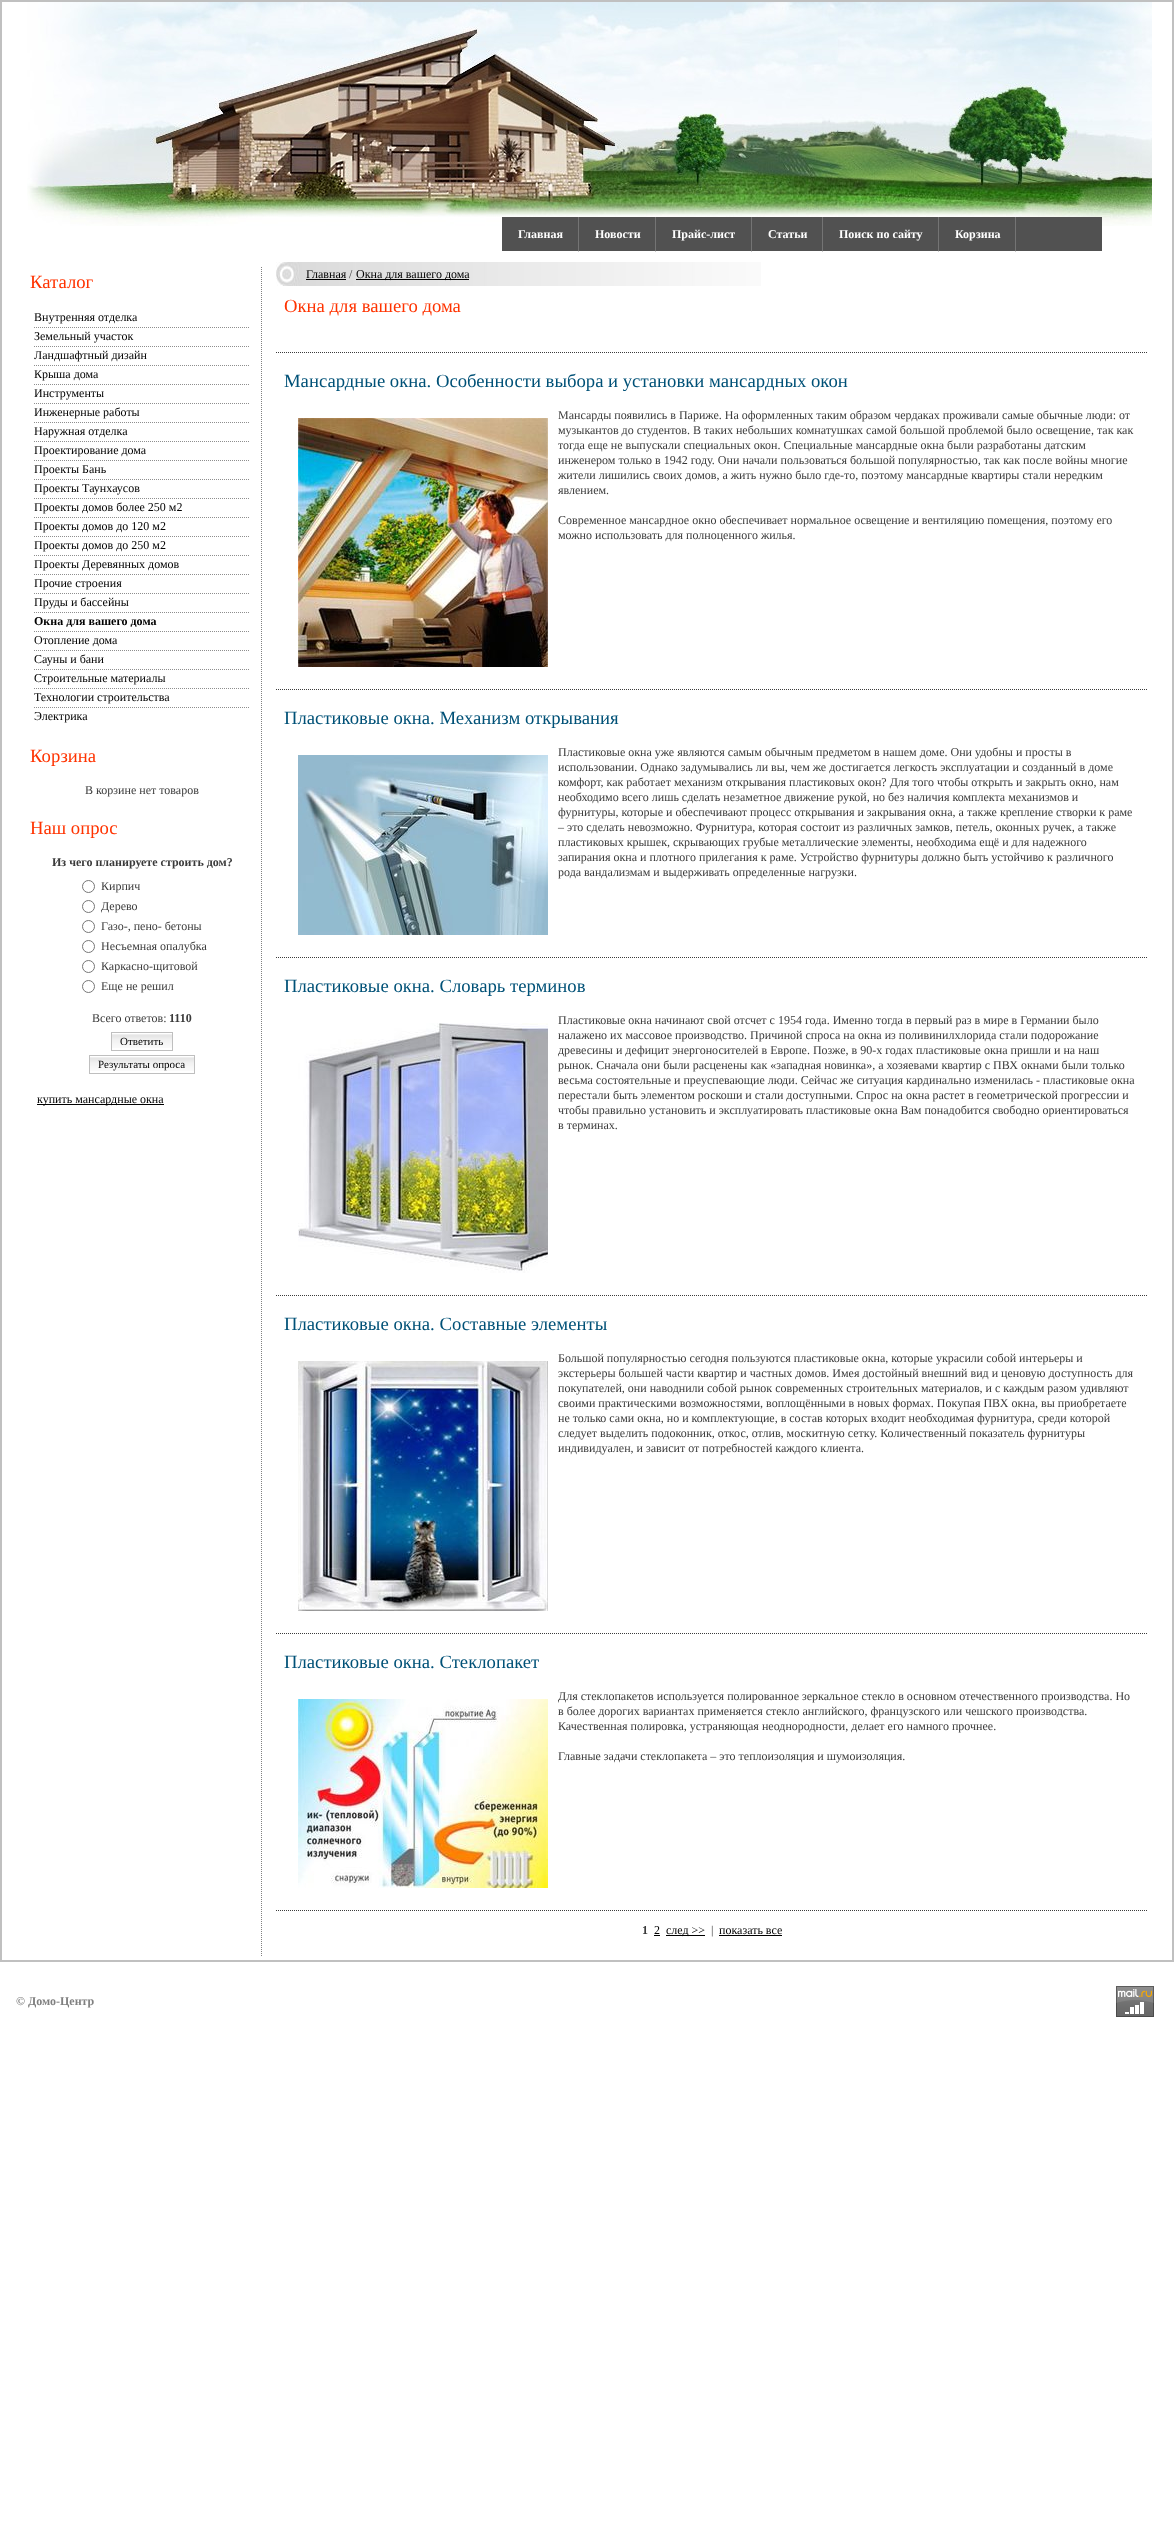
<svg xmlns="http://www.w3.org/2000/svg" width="1174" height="2531">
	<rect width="100%" height="100%" fill="#FFFFFF" />
	<rect x="1" y="1" width="1172" height="1960" fill="none" stroke="#C0C0C0" stroke-width="2" />
	<image x="27" y="2" width="1125" height="224" href="assets/img1.png" />
	<rect x="502" y="217" width="600" height="34" fill="#515151" />
	<rect x="578" y="217" width="1" height="35" fill="#979797" fill-opacity="0.5" />
	<text x="518" y="238" font-family="Liberation Serif" font-size="12" font-weight="700" fill="#FFFFFF">Главная</text>
	<rect x="655" y="217" width="1" height="35" fill="#979797" fill-opacity="0.5" />
	<text x="595" y="238" font-family="Liberation Serif" font-size="12" font-weight="700" fill="#FFFFFF">Новости</text>
	<rect x="751" y="217" width="1" height="35" fill="#979797" fill-opacity="0.5" />
	<text x="672" y="238" font-family="Liberation Serif" font-size="12" font-weight="700" fill="#FFFFFF">Прайс-лист</text>
	<rect x="822" y="217" width="1" height="35" fill="#979797" fill-opacity="0.5" />
	<text x="768" y="238" font-family="Liberation Serif" font-size="12" font-weight="700" fill="#FFFFFF">Статьи</text>
	<rect x="938" y="217" width="1" height="35" fill="#979797" fill-opacity="0.5" />
	<text x="839" y="238" font-family="Liberation Serif" font-size="12" font-weight="700" fill="#FFFFFF">Поиск по сайту</text>
	<rect x="1015" y="217" width="1" height="35" fill="#979797" fill-opacity="0.5" />
	<text x="955" y="238" font-family="Liberation Serif" font-size="12" font-weight="700" fill="#FFFFFF">Корзина</text>
	<image x="261" y="267" width="1" height="1689" href="assets/img2.png" />
	<text x="30" y="288" font-family="Liberation Serif" font-size="18.7" fill="#FF3300">Каталог</text>
	<text x="34" y="321" font-family="Liberation Serif" font-size="12" fill="#000000">Внутренняя отделка</text>
	<image x="34" y="327" width="215" height="1" href="assets/img3.png" />
	<text x="34" y="340" font-family="Liberation Serif" font-size="12" fill="#000000">Земельный участок</text>
	<image x="34" y="346" width="215" height="1" href="assets/img3.png" />
	<text x="34" y="359" font-family="Liberation Serif" font-size="12" fill="#000000">Ландшафтный дизайн</text>
	<image x="34" y="365" width="215" height="1" href="assets/img3.png" />
	<text x="34" y="378" font-family="Liberation Serif" font-size="12" fill="#000000">Крыша дома</text>
	<image x="34" y="384" width="215" height="1" href="assets/img3.png" />
	<text x="34" y="397" font-family="Liberation Serif" font-size="12" fill="#000000">Инструменты</text>
	<image x="34" y="403" width="215" height="1" href="assets/img3.png" />
	<text x="34" y="416" font-family="Liberation Serif" font-size="12" fill="#000000">Инженерные работы</text>
	<image x="34" y="422" width="215" height="1" href="assets/img3.png" />
	<text x="34" y="435" font-family="Liberation Serif" font-size="12" fill="#000000">Наружная отделка</text>
	<image x="34" y="441" width="215" height="1" href="assets/img3.png" />
	<text x="34" y="454" font-family="Liberation Serif" font-size="12" fill="#000000">Проектирование дома</text>
	<image x="34" y="460" width="215" height="1" href="assets/img3.png" />
	<text x="34" y="473" font-family="Liberation Serif" font-size="12" fill="#000000">Проекты Бань</text>
	<image x="34" y="479" width="215" height="1" href="assets/img3.png" />
	<text x="34" y="492" font-family="Liberation Serif" font-size="12" fill="#000000">Проекты Таунхаусов</text>
	<image x="34" y="498" width="215" height="1" href="assets/img3.png" />
	<text x="34" y="511" font-family="Liberation Serif" font-size="12" fill="#000000">Проекты домов более 250 м2</text>
	<image x="34" y="517" width="215" height="1" href="assets/img3.png" />
	<text x="34" y="530" font-family="Liberation Serif" font-size="12" fill="#000000">Проекты домов до 120 м2</text>
	<image x="34" y="536" width="215" height="1" href="assets/img3.png" />
	<text x="34" y="549" font-family="Liberation Serif" font-size="12" fill="#000000">Проекты домов до 250 м2</text>
	<image x="34" y="555" width="215" height="1" href="assets/img3.png" />
	<text x="34" y="568" font-family="Liberation Serif" font-size="12" fill="#000000">Проекты Деревянных домов</text>
	<image x="34" y="574" width="215" height="1" href="assets/img3.png" />
	<text x="34" y="587" font-family="Liberation Serif" font-size="12" fill="#000000">Прочие строения</text>
	<image x="34" y="593" width="215" height="1" href="assets/img3.png" />
	<text x="34" y="606" font-family="Liberation Serif" font-size="12" fill="#000000">Пруды и бассейны</text>
	<image x="34" y="612" width="215" height="1" href="assets/img3.png" />
	<text x="34" y="625" font-family="Liberation Serif" font-size="12" font-weight="700" fill="#000000">Окна для вашего дома</text>
	<image x="34" y="631" width="215" height="1" href="assets/img3.png" />
	<text x="34" y="644" font-family="Liberation Serif" font-size="12" fill="#000000">Отопление дома</text>
	<image x="34" y="650" width="215" height="1" href="assets/img3.png" />
	<text x="34" y="663" font-family="Liberation Serif" font-size="12" fill="#000000">Сауны и бани</text>
	<image x="34" y="669" width="215" height="1" href="assets/img3.png" />
	<text x="34" y="682" font-family="Liberation Serif" font-size="12" fill="#000000">Строительные материалы</text>
	<image x="34" y="688" width="215" height="1" href="assets/img3.png" />
	<text x="34" y="701" font-family="Liberation Serif" font-size="12" fill="#000000">Технологии строительства</text>
	<image x="34" y="707" width="215" height="1" href="assets/img3.png" />
	<text x="34" y="720" font-family="Liberation Serif" font-size="12" fill="#000000">Электрика</text>
	<text x="30" y="762" font-family="Liberation Serif" font-size="18.7" fill="#FF3300">Корзина</text>
	<text x="85" y="794" font-family="Liberation Serif" font-size="12" fill="#3B3B3B">В корзине нет товаров</text>
	<text x="30" y="834" font-family="Liberation Serif" font-size="18.7" fill="#FF3300">Наш опрос</text>
	<text x="52" y="866" font-family="Liberation Serif" font-size="12" font-weight="700" fill="#3B3B3B">Из чего планируете строить дом?</text>
	<circle cx="88.5" cy="886.5" r="6" fill="none" stroke="#767676" />
	<text x="101" y="890" font-family="Liberation Serif" font-size="12" fill="#3B3B3B">Кирпич</text>
	<circle cx="88.5" cy="906.5" r="6" fill="none" stroke="#767676" />
	<text x="101" y="910" font-family="Liberation Serif" font-size="12" fill="#3B3B3B">Дерево</text>
	<circle cx="88.5" cy="926.5" r="6" fill="none" stroke="#767676" />
	<text x="101" y="930" font-family="Liberation Serif" font-size="12" fill="#3B3B3B">Газо-, пено- бетоны</text>
	<circle cx="88.5" cy="946.5" r="6" fill="none" stroke="#767676" />
	<text x="101" y="950" font-family="Liberation Serif" font-size="12" fill="#3B3B3B">Несъемная опалубка</text>
	<circle cx="88.5" cy="966.5" r="6" fill="none" stroke="#767676" />
	<text x="101" y="970" font-family="Liberation Serif" font-size="12" fill="#3B3B3B">Каркасно-щитовой</text>
	<circle cx="88.5" cy="986.5" r="6" fill="none" stroke="#767676" />
	<g font-family="Liberation Serif" font-size="12" fill="#3B3B3B">
		<text x="101" y="990">Еще не решил</text>
		<text x="92" y="1022">Всего ответов:</text>
	</g>
	<text x="169" y="1022" font-family="Liberation Serif" font-size="12" font-weight="700" fill="#3B3B3B">1110</text>
	<image x="112" y="1034" width="60" height="14" href="assets/img4.png" />
	<rect x="111.5" y="1032.5" width="61" height="18" fill="none" stroke="#BFBFBF" />
	<text x="120" y="1045" font-family="Liberation Serif" font-size="11" fill="#000000">Ответить</text>
	<image x="90" y="1057" width="104" height="14" href="assets/img5.png" />
	<rect x="89.5" y="1055.5" width="105" height="18" fill="none" stroke="#BFBFBF" />
	<text x="98" y="1068" font-family="Liberation Serif" font-size="11" fill="#000000">Результаты опроса</text>
	<rect x="37" y="1104" width="127" height="1" fill="#000000" />
	<text x="37" y="1103" font-family="Liberation Serif" font-size="12" fill="#000000">купить мансардные окна</text>
	<image x="276" y="262" width="485" height="24" href="assets/img6.png" />
	<text x="306" y="278" font-family="Liberation Serif" font-size="12" fill="#000000">Главная</text>
	<rect x="306" y="279" width="40" height="1" fill="#000000" />
	<text x="349" y="278" font-family="Liberation Serif" font-size="12" fill="#3B3B3B">/</text>
	<rect x="356" y="279" width="113" height="1" fill="#000000" />
	<text x="356" y="278" font-family="Liberation Serif" font-size="12" fill="#000000">Окна для вашего дома</text>
	<text x="284" y="312" font-family="Liberation Serif" font-size="18.7" fill="#FF3300">Окна для вашего дома</text>
	<path d="M276 352.5H1148" fill="none" stroke="#3B3B3B" stroke-dasharray="1 1" />
	<text x="284" y="387" font-family="Liberation Serif" font-size="18.7" fill="#005177">Мансардные окна. Особенности выбора и установки мансардных окон</text>
	<text x="558" y="419" font-family="Liberation Serif" font-size="12" fill="#3B3B3B">Мансарды появились в Париже. На оформленных таким образом чердаках проживали самые обычные люди: от</text>
	<image x="298" y="418" width="250" height="249" href="assets/img7.png" />
	<g font-family="Liberation Serif" font-size="12" fill="#3B3B3B">
		<text x="558" y="434">музыкантов до студентов. В таких небольших комнатушках самой большой проблемой было освещение, так как</text>
		<text x="558" y="449">тогда еще не выпускали специальных окон. Специальные мансардные окна были разработаны датским</text>
		<text x="558" y="464">инженером только в 1942 году. Они начали пользоваться большой популярностью, так как после войны многие</text>
		<text x="558" y="479">жители лишились своих домов, а жить нужно было где-то, поэтому мансардные квартиры стали нередким</text>
		<text x="558" y="494">явлением.</text>
		<text x="558" y="524">Современное мансардное окно обеспечивает нормальное освещение и вентиляцию помещения, поэтому его</text>
		<text x="558" y="539">можно использовать для полноценного жилья.</text>
	</g>
	<path d="M276 689.5H1148" fill="none" stroke="#3B3B3B" stroke-dasharray="1 1" />
	<text x="284" y="724" font-family="Liberation Serif" font-size="18.7" fill="#005177">Пластиковые окна. Механизм открывания</text>
	<text x="558" y="756" font-family="Liberation Serif" font-size="12" fill="#3B3B3B">Пластиковые окна уже являются самым обычным предметом в нашем доме. Они удобны и просты в</text>
	<image x="298" y="755" width="250" height="180" href="assets/img8.png" />
	<g font-family="Liberation Serif" font-size="12" fill="#3B3B3B">
		<text x="558" y="771">использовании. Однако задумывались ли вы, чем же достигается легкость эксплуатации и созданный в доме</text>
		<text x="558" y="786">комфорт, как работает механизм открывания пластиковых окон? Для того чтобы открыть и закрыть окно, нам</text>
		<text x="558" y="801">необходимо всего лишь сделать незаметное движение рукой, но без наличия комплекта механизмов и</text>
		<text x="558" y="816">фурнитуры, которые и обеспечивают процесс открывания и закрывания окна, а также крепление створки к раме</text>
		<text x="558" y="831">– это сделать невозможно. Фурнитура, которая состоит из различных замков, петель, оконных ручек, а также</text>
		<text x="558" y="846">пластиковых крышек, скрывающих грубые металлические элементы, необходима ещё и для надежного</text>
		<text x="558" y="861">запирания окна и плотного прилегания к раме. Устройство фурнитуры должно быть устойчиво к различного</text>
		<text x="558" y="876">рода вандализмам и выдерживать определенные нагрузки.</text>
	</g>
	<path d="M276 957.5H1148" fill="none" stroke="#3B3B3B" stroke-dasharray="1 1" />
	<text x="284" y="992" font-family="Liberation Serif" font-size="18.7" fill="#005177">Пластиковые окна. Словарь терминов</text>
	<text x="558" y="1024" font-family="Liberation Serif" font-size="12" fill="#3B3B3B">Пластиковые окна начинают свой отсчет с 1954 года. Именно тогда в первый раз в мире в Германии было</text>
	<image x="298" y="1023" width="250" height="250" href="assets/img9.png" />
	<g font-family="Liberation Serif" font-size="12" fill="#3B3B3B">
		<text x="558" y="1039">налажено их массовое производство. Причиной спроса на окна из поливинилхлорида стали подорожание</text>
		<text x="558" y="1054">древесины и дефицит энергоносителей в Европе. Позже, в 90-х годах пластиковые окна пришли и на наш</text>
		<text x="558" y="1069">рынок. Сначала они были расценены как «западная новинка», а хозяевами квартир с ПВХ окнами были только</text>
		<text x="558" y="1084">весьма состоятельные и преуспевающие люди. Сейчас же ситуация кардинально изменилась - пластиковые окна</text>
		<text x="558" y="1099">перестали быть элементом роскоши и стали доступными. Спрос на окна растет в геометрической прогрессии и</text>
		<text x="558" y="1114">чтобы правильно установить и эксплуатировать пластиковые окна Вам понадобится свободно ориентироваться</text>
		<text x="558" y="1129">в терминах.</text>
	</g>
	<path d="M276 1295.5H1148" fill="none" stroke="#3B3B3B" stroke-dasharray="1 1" />
	<text x="284" y="1330" font-family="Liberation Serif" font-size="18.7" fill="#005177">Пластиковые окна. Составные элементы</text>
	<text x="558" y="1362" font-family="Liberation Serif" font-size="12" fill="#3B3B3B">Большой популярностью сегодня пользуются пластиковые окна, которые украсили собой интерьеры и</text>
	<image x="298" y="1361" width="250" height="250" href="assets/img10.png" />
	<g font-family="Liberation Serif" font-size="12" fill="#3B3B3B">
		<text x="558" y="1377">экстерьеры большей части квартир и частных домов. Имея достойный внешний вид и ценовую доступность для</text>
		<text x="558" y="1392">покупателей, они наводнили собой рынок современных строительных материалов, и с каждым разом удивляют</text>
		<text x="558" y="1407">своими практическими возможностями, воплощёнными в новых формах. Покупая ПВХ окна, вы приобретаете</text>
		<text x="558" y="1422">не только сами окна, но и комплектующие, в состав которых входит необходимая фурнитура, среди которой</text>
		<text x="558" y="1437">следует выделить подоконник, откос, отлив, москитную сетку. Количественный показатель фурнитуры</text>
		<text x="558" y="1452">индивидуален, и зависит от потребностей каждого клиента.</text>
	</g>
	<path d="M276 1633.5H1148" fill="none" stroke="#3B3B3B" stroke-dasharray="1 1" />
	<text x="284" y="1668" font-family="Liberation Serif" font-size="18.7" fill="#005177">Пластиковые окна. Стеклопакет</text>
	<text x="558" y="1700" font-family="Liberation Serif" font-size="12" fill="#3B3B3B">Для стеклопакетов используется полированное зеркальное стекло в основном отечественного производства. Но</text>
	<image x="298" y="1699" width="250" height="189" href="assets/img11.png" />
	<g font-family="Liberation Serif" font-size="12" fill="#3B3B3B">
		<text x="558" y="1715">в более дорогих вариантах применяется стекло английского, французского или чешского производства.</text>
		<text x="558" y="1730">Качественная полировка, устраняющая неоднородности, делает его намного прочнее.</text>
		<text x="558" y="1760">Главные задачи стеклопакета – это теплоизоляция и шумоизоляция.</text>
	</g>
	<path d="M276 1910.5H1148" fill="none" stroke="#3B3B3B" stroke-dasharray="1 1" />
	<text x="642" y="1934" font-family="Liberation Serif" font-size="12" font-weight="700" fill="#3B3B3B">1</text>
	<text x="654" y="1934" font-family="Liberation Serif" font-size="12" fill="#000000">2</text>
	<rect x="654" y="1935" width="6" height="1" fill="#000000" />
	<rect x="666" y="1935" width="39" height="1" fill="#000000" />
	<text x="666" y="1934" font-family="Liberation Serif" font-size="12" fill="#000000">след &gt;&gt;</text>
	<text x="711" y="1934" font-family="Liberation Serif" font-size="12" fill="#3B3B3B">|</text>
	<text x="719" y="1934" font-family="Liberation Serif" font-size="12" fill="#000000">показать все</text>
	<rect x="719" y="1935" width="63" height="1" fill="#000000" />
	<text x="16" y="2005" font-family="Liberation Serif" font-size="12" font-weight="700" fill="#808080">© Домо-Центр</text>
	<image x="1116" y="1986" width="38" height="31" href="assets/img12.png" />
</svg>
